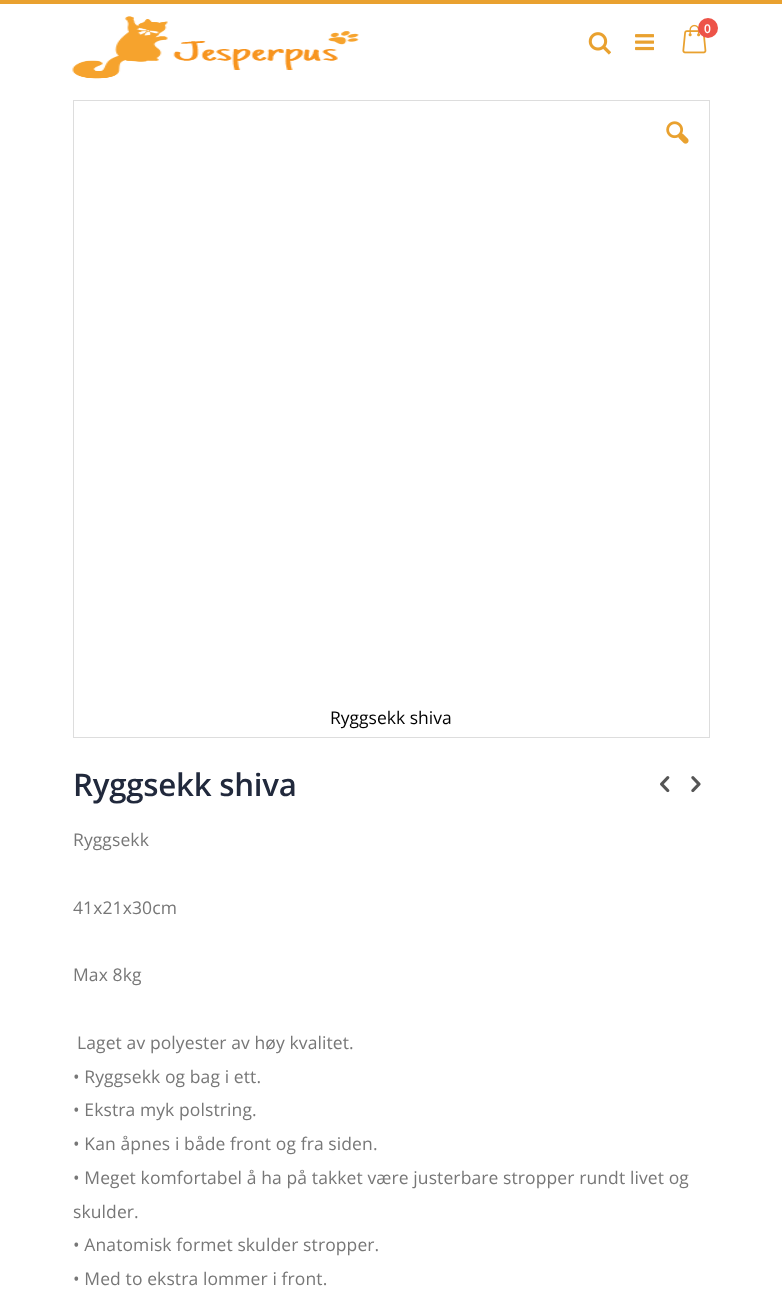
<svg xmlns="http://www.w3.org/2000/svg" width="782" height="1311">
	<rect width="100%" height="100%" fill="#FFFFFF" />
	<rect x="0" y="0" width="782" height="4" fill="#E9A12F" />
	<image x="72" y="16" width="287" height="63" href="assets/img1.png" />
	<image x="682" y="24" width="25" height="30" href="assets/img2.png" />
	<circle cx="708" cy="28" r="10" fill="#ED5348" />
	<text x="704" y="33" font-family="Open Sans" font-size="12" font-weight="600" fill="#FFFFFF">0</text>
	<image x="588" y="32" width="23" height="23" href="assets/img3.png" />
	<image x="635" y="34" width="19" height="17" href="assets/img4.png" />
	<rect x="73.5" y="100.5" width="636" height="637" fill="none" stroke="#DDDDDD" />
	<image x="666" y="121" width="23" height="23" href="assets/img5.png" />
	<text x="330" y="724" font-family="Open Sans" font-size="17.5" fill="#000000">Ryggsekk shiva</text>
	<text x="73" y="796" font-family="Open Sans" font-size="31.25" font-weight="600" letter-spacing="-0.25" fill="#21293C">Ryggsekk shiva</text>
	<image x="660" y="776" width="10" height="17" href="assets/img6.png" />
	<image x="691" y="776" width="10" height="17" href="assets/img7.png" />
	<g font-family="Open Sans" font-size="17.5" letter-spacing="0.1" fill="#777777">
		<text x="73" y="846">Ryggsekk</text>
		<text x="73" y="914">41x21x30cm</text>
		<text x="73" y="981">Max 8kg</text>
		<text x="77" y="1049">Laget av polyester av høy kvalitet.</text>
		<text x="73" y="1083">• Ryggsekk og bag i ett.</text>
		<text x="73" y="1116">• Ekstra myk polstring.</text>
		<text x="73" y="1150">• Kan åpnes i både front og fra siden.</text>
		<text x="73" y="1184">• Meget komfortabel å ha på takket være justerbare stropper rundt livet og</text>
		<text x="73" y="1218">skulder.</text>
		<text x="73" y="1251">• Anatomisk formet skulder stropper.</text>
		<text x="73" y="1285">• Med to ekstra lommer i front.</text>
	</g>
</svg>
